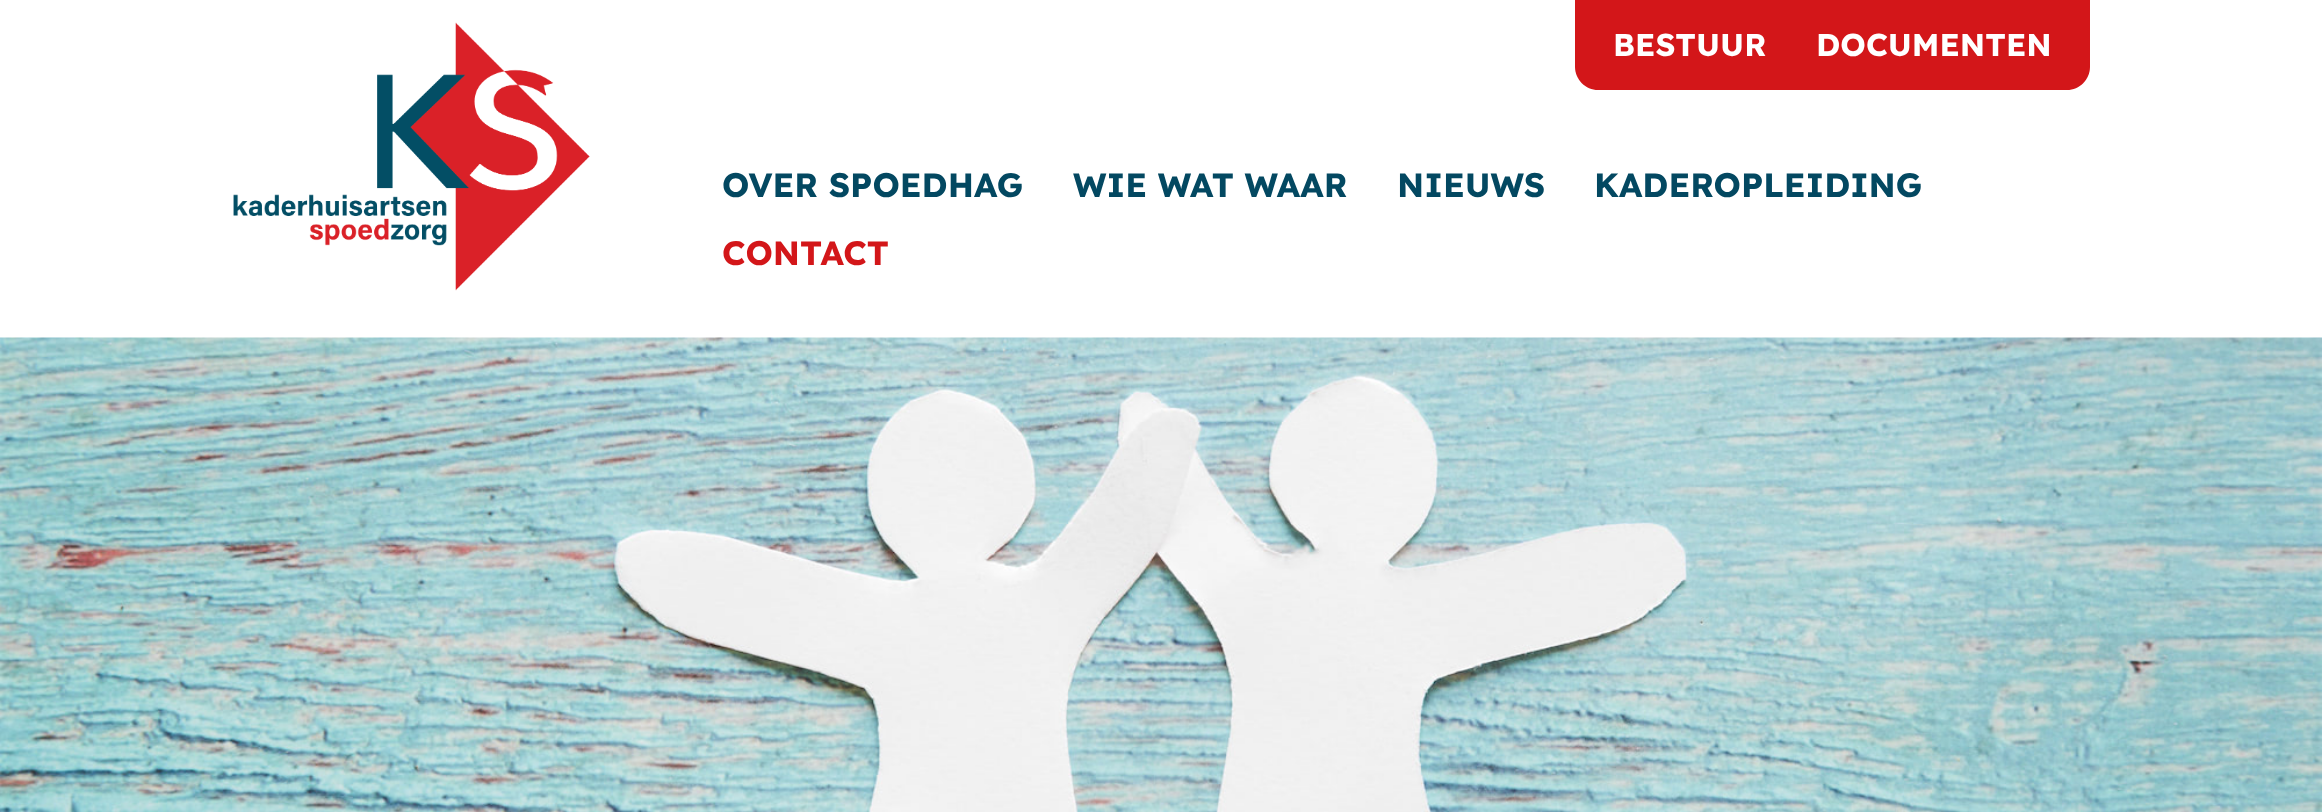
<svg xmlns="http://www.w3.org/2000/svg" width="2322" height="812">
	<rect width="100%" height="100%" fill="#FFFFFF" />
	<image x="233" y="22" width="357" height="269" href="assets/img1.png" />
	<path d="M1575 0H2090V67C2090 79.5 2079.5 90 2067 90H1598C1585.5 90 1575 79.5 1575 67Z" fill="#D31619" />
	<g font-family="Lexend Deca" font-size="31.5" font-weight="700" fill="#FFFFFF">
		<text x="1613" y="56">BESTUUR</text>
		<text x="1816" y="56">DOCUMENTEN</text>
	</g>
	<g font-family="Lexend Deca" font-size="33.75" font-weight="700" fill="#034861">
		<text x="722" y="197">OVER SPOEDHAG</text>
		<text x="1073" y="197">WIE WAT WAAR</text>
		<text x="1397" y="197">NIEUWS</text>
		<text x="1594" y="197">KADEROPLEIDING</text>
	</g>
	<text x="722" y="265" font-family="Lexend Deca" font-size="33.75" font-weight="700" fill="#D31619">CONTACT</text>
	<image x="0" y="337" width="2322" height="475" href="assets/img2.png" />
</svg>
